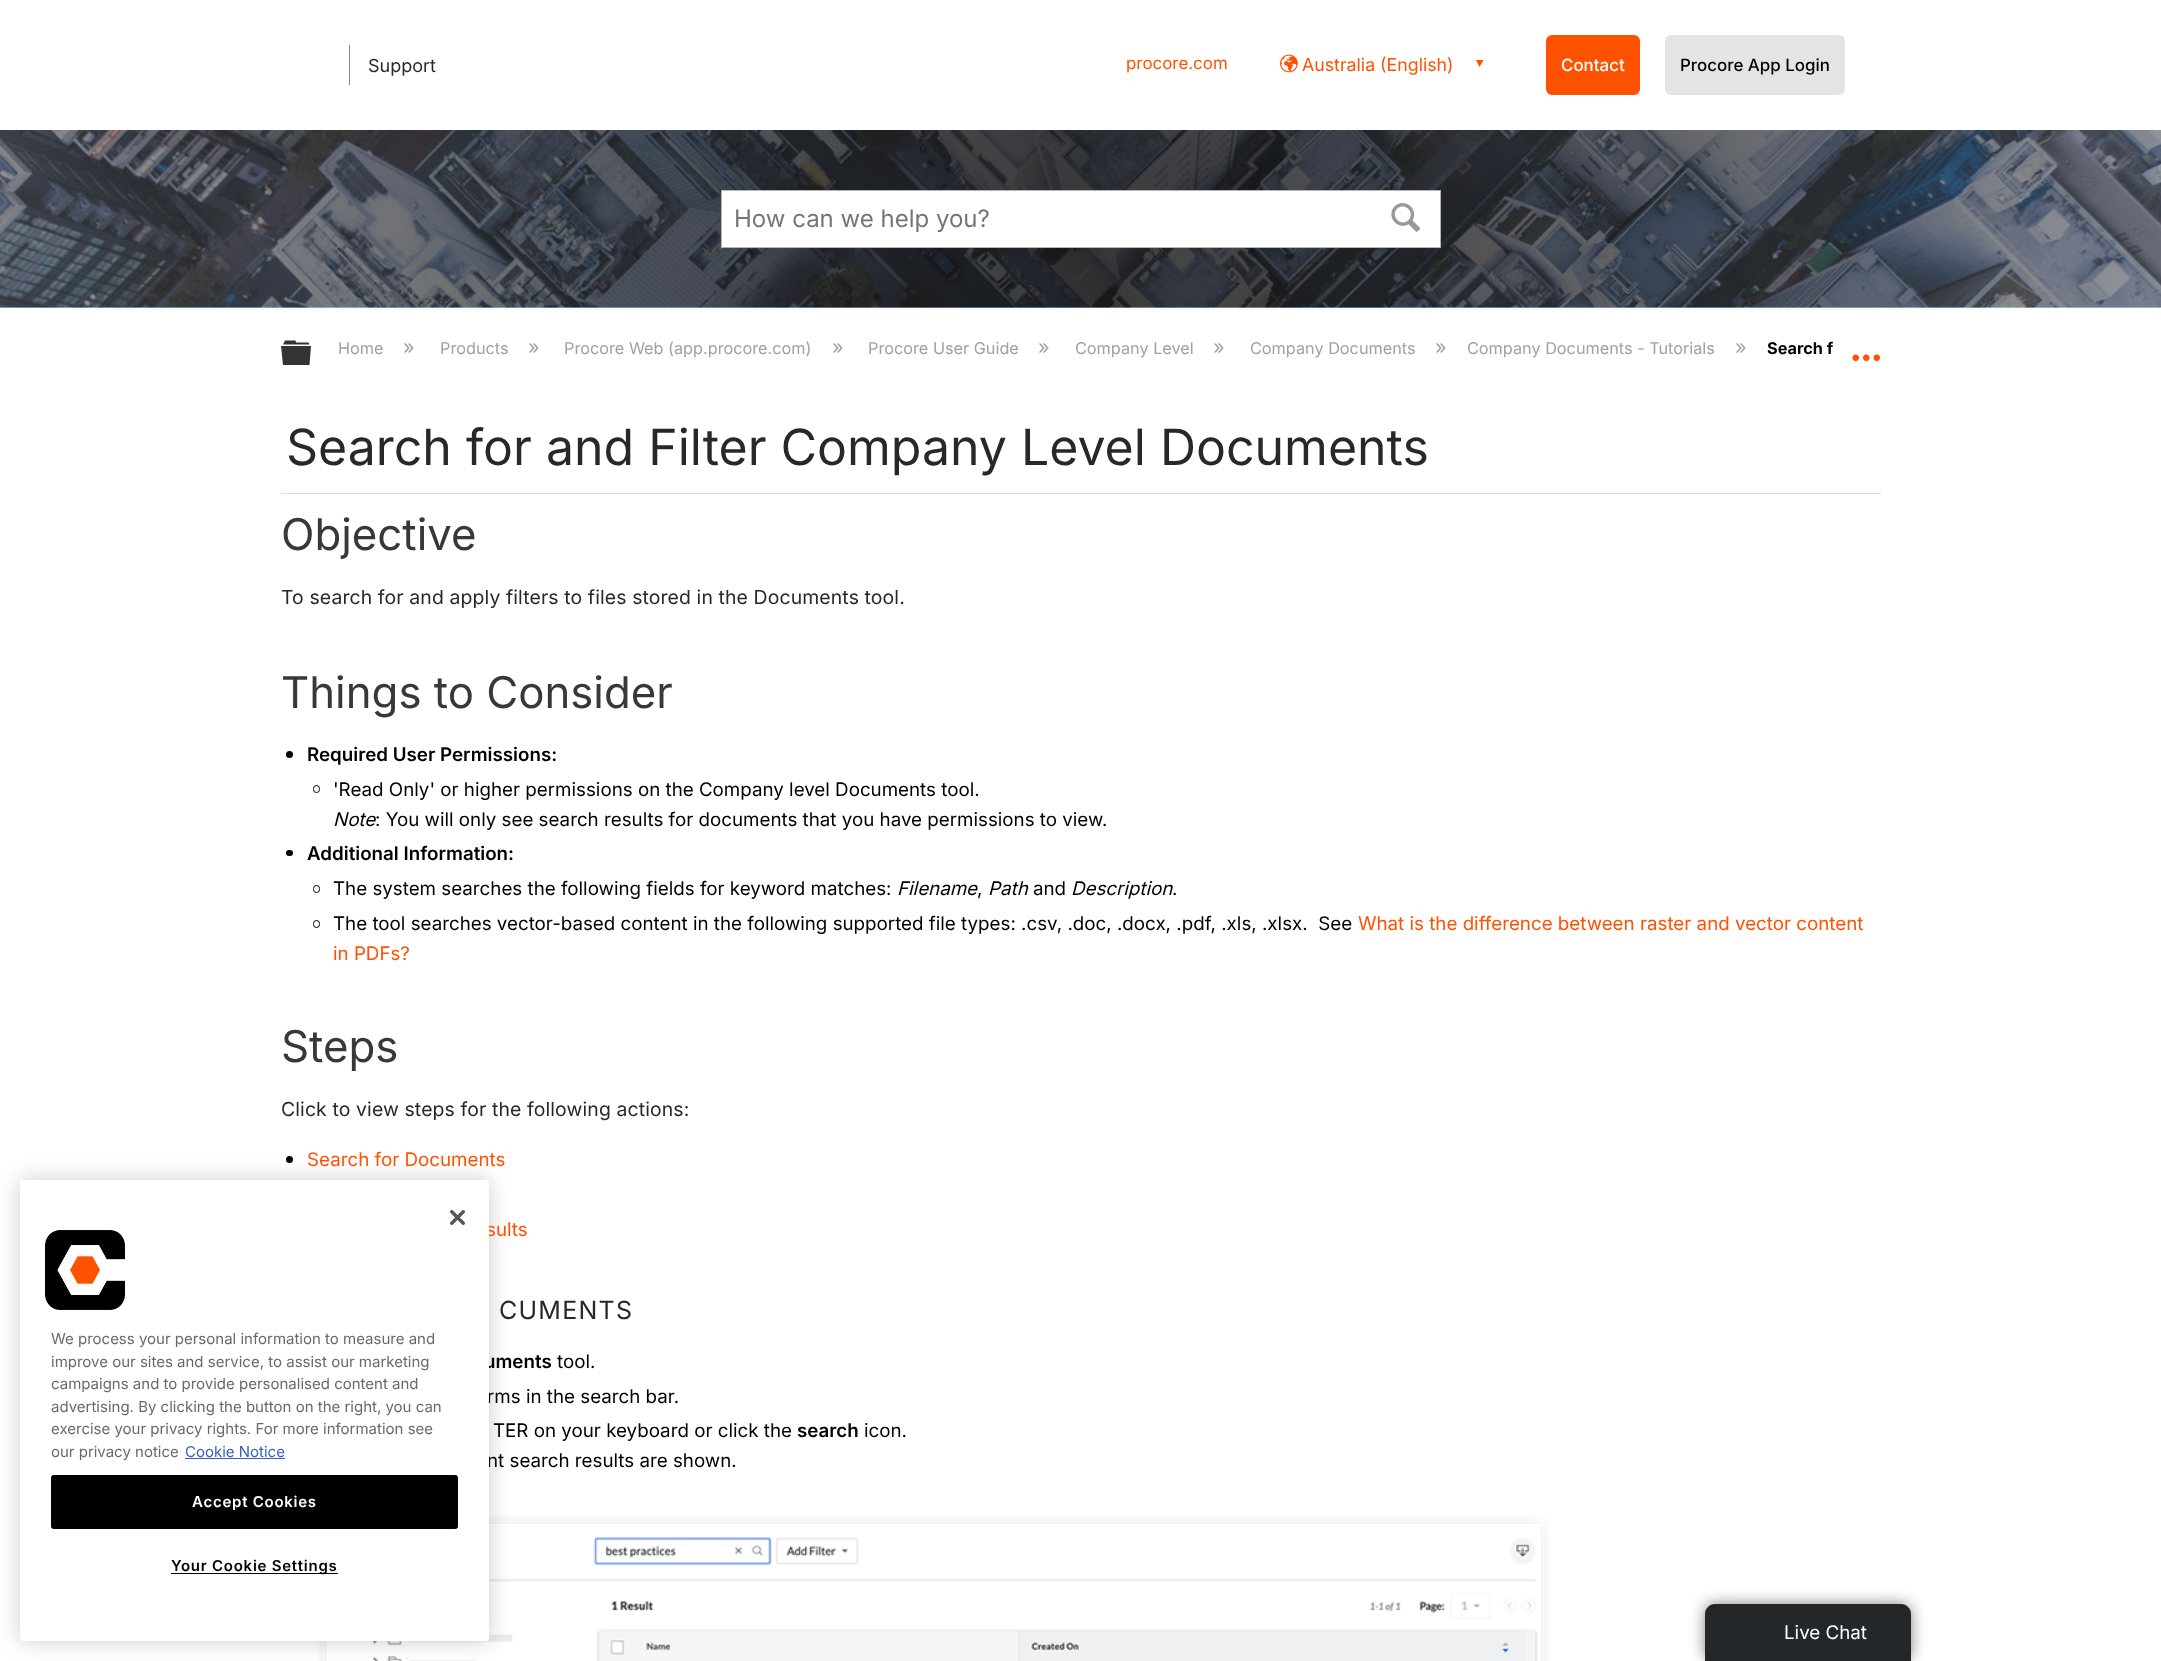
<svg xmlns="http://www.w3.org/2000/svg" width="2161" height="1661">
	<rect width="100%" height="100%" fill="#FFFFFF" />
	<circle cx="289.5" cy="1159.5" r="3.5" fill="#040404" />
	<image x="317" y="1515" width="1233" height="146" href="assets/img7.png" />
	<rect x="20" y="1180" width="469" height="461" rx="3" fill="#000000" fill-opacity="0.2" filter="blur(11px)" />
	<text x="486" y="1236" font-family="Inter" font-size="18.75" fill="#FF5200">sults</text>
	<text x="484" y="1368" font-family="Inter" font-size="18.75" font-weight="600" fill="#000000">uments</text>
	<g font-family="Inter" font-size="18.75" fill="#000000">
		<text x="487" y="1403">rms in the search bar.</text>
		<text x="487" y="1467">nt search results are shown.</text>
	</g>
	<rect x="20" y="1180" width="469" height="461" rx="3" fill="#FFFFFF" />
	<image x="450" y="1210" width="15" height="15" href="assets/img1.png" />
	<image x="45" y="1230" width="80" height="80" href="assets/img2.png" />
	<g font-family="Inter" font-size="15" fill="#696969">
		<text x="51" y="1344">We process your personal information to measure and</text>
		<text x="51" y="1367">improve our sites and service, to assist our marketing</text>
		<text x="51" y="1389">campaigns and to provide personalised content and</text>
		<text x="51" y="1412">advertising. By clicking the button on the right, you can</text>
		<text x="51" y="1434">exercise your privacy rights. For more information see</text>
		<text x="51" y="1457">our privacy notice</text>
	</g>
	<text x="185" y="1457" font-family="Inter" font-size="15" fill="#3860BE">Cookie Notice</text>
	<rect x="185" y="1458" width="100" height="1" fill="#3860BE" />
	<rect x="51.5" y="1475.5" width="406" height="53" rx="2" fill="#000000" stroke="#000000" />
	<text x="192" y="1507" font-family="Inter" font-size="15" font-weight="600" letter-spacing="0.75" fill="#FFFFFF">Accept Cookies</text>
	<rect x="171" y="1573" width="167" height="1" fill="#000000" />
	<text x="171" y="1571" font-family="Inter" font-size="15" font-weight="600" letter-spacing="0.75" fill="#000000">Your Cookie Settings</text>
	<text x="368" y="72" font-family="Inter" font-size="18" fill="#282828">Support</text>
	<rect x="349" y="45" width="1" height="40" fill="#888888" />
	<text x="1126" y="69" font-family="Inter" font-size="16.9" fill="#FF5200">procore.com</text>
	<image x="1280" y="54" width="18" height="19" href="assets/img3.png" />
	<text x="1302" y="71" font-family="Inter" font-size="17.75" fill="#FF5200">Australia (English)</text>
	<path d="M1483.5 60H1476L1479.5 67Z" fill="#FF5200" />
	<rect x="1546" y="35" width="94" height="60" rx="6" fill="#FF5200" />
	<text x="1561" y="71" font-family="Inter" font-size="16.9" font-weight="500" fill="#FFFFFF">Contact</text>
	<rect x="1665" y="35" width="180" height="60" rx="6" fill="#E3E4E6" />
	<text x="1680" y="71" font-family="Inter" font-size="16.9" font-weight="500" fill="#000000">Procore App Login</text>
	<rect x="0" y="307" width="2161" height="1" fill="#B7E5FC" />
	<image x="0" y="130" width="2161" height="178" href="assets/img4.png" />
	<rect x="721.5" y="190.5" width="719" height="57" fill="#FFFFFF" stroke="#B4B4B4" />
	<text x="734" y="227" font-family="Inter" font-size="24" fill="#757575">How can we help you?</text>
	<image x="1391" y="203" width="29" height="29" href="assets/img5.png" />
	<path d="M281 346H311L309.5 365H283ZM308.5 342.5L309.5 344.5H283L285 340.5H295.5L296 342.5Z" fill="#333333" />
	<text x="338" y="354" font-family="Inter" font-size="16.25" fill="#9FA2A3">Home</text>
	<text x="403" y="354" font-family="Inter" font-size="20" fill="#9FA2A3">»</text>
	<text x="440" y="354" font-family="Inter" font-size="16.25" fill="#9FA2A3">Products</text>
	<text x="528" y="354" font-family="Inter" font-size="20" fill="#9FA2A3">»</text>
	<text x="564" y="354" font-family="Inter" font-size="16.25" fill="#9FA2A3">Procore Web (app.procore.com)</text>
	<text x="832" y="354" font-family="Inter" font-size="20" fill="#9FA2A3">»</text>
	<text x="868" y="354" font-family="Inter" font-size="16.25" fill="#9FA2A3">Procore User Guide</text>
	<text x="1038" y="354" font-family="Inter" font-size="20" fill="#9FA2A3">»</text>
	<text x="1075" y="354" font-family="Inter" font-size="16.25" fill="#9FA2A3">Company Level</text>
	<text x="1213" y="354" font-family="Inter" font-size="20" fill="#9FA2A3">»</text>
	<text x="1250" y="354" font-family="Inter" font-size="16.25" fill="#9FA2A3">Company Documents</text>
	<text x="1435" y="354" font-family="Inter" font-size="20" fill="#9FA2A3">»</text>
	<text x="1467" y="354" font-family="Inter" font-size="16.25" fill="#9FA2A3">Company Documents - Tutorials</text>
	<text x="1735" y="354" font-family="Inter" font-size="20" fill="#9FA2A3">»</text>
	<text x="1767" y="354" font-family="Inter" font-size="16.25" font-weight="700" fill="#000000">Search f</text>
	<image x="1852" y="354" width="28" height="7" href="assets/img6.png" />
	<rect x="281" y="493" width="1600" height="1" fill="#DDDDDD" />
	<text x="286" y="465" font-family="Inter" font-size="50" fill="#282828">Search for and Filter Company Level Documents</text>
	<text x="281" y="550" font-family="Inter" font-size="43.75" fill="#383838">Objective</text>
	<text x="281" y="604" font-family="Inter" font-size="19.4" letter-spacing="0.12" fill="#282828">To search for and apply filters to files stored in the Documents tool.</text>
	<text x="281" y="708" font-family="Inter" font-size="43.75" fill="#383838">Things to Consider</text>
	<circle cx="289.5" cy="754.5" r="3.5" fill="#040404" />
	<text x="307" y="761" font-family="Inter" font-size="18.75" font-weight="600" fill="#000000">Required User Permissions:</text>
	<rect x="313.5" y="785.5" width="6" height="7" rx="3" fill="none" stroke="#040404" />
	<text x="333" y="796" font-family="Inter" font-size="18.75" fill="#000000">'Read Only' or higher permissions on the Company level Documents tool.</text>
	<text x="333" y="826" font-family="Inter" font-size="18.75" font-style="italic" fill="#000000">Note</text>
	<text x="375" y="826" font-family="Inter" font-size="18.75" fill="#000000">: You will only see search results for documents that you have permissions to view.</text>
	<rect x="286" y="850" width="7" height="6" rx="3" fill="#040404" />
	<text x="307" y="860" font-family="Inter" font-size="18.75" font-weight="600" fill="#000000">Additional Information:</text>
	<rect x="313.5" y="885.5" width="6" height="7" rx="3" fill="none" stroke="#040404" />
	<text x="333" y="895" font-family="Inter" font-size="18.75" fill="#000000">The system searches the following fields for keyword matches:</text>
	<g font-family="Inter" font-size="18.75" font-style="italic" fill="#000000">
		<text x="897" y="895">Filename</text>
		<text x="988" y="895">Path</text>
	</g>
	<text x="1033" y="895" font-family="Inter" font-size="18.75" fill="#000000">and</text>
	<text x="1071" y="895" font-family="Inter" font-size="18.75" font-style="italic" fill="#000000">Description</text>
	<g font-family="Inter" font-size="18.75" fill="#000000">
		<text x="977" y="895">,</text>
		<text x="1172" y="895">.</text>
	</g>
	<rect x="313.5" y="920.5" width="6" height="7" rx="3" fill="none" stroke="#040404" />
	<text x="333" y="930" font-family="Inter" font-size="18.75" fill="#000000" xml:space="preserve">The tool searches vector-based content in the following supported file types: .csv, .doc, .docx, .pdf, .xls, .xlsx.  See</text>
	<g font-family="Inter" font-size="18.75" fill="#FF5200">
		<text x="1358" y="930">What is the difference between raster and vector content</text>
		<text x="333" y="960">in PDFs?</text>
	</g>
	<text x="281" y="1062" font-family="Inter" font-size="43.75" fill="#383838">Steps</text>
	<text x="281" y="1116" font-family="Inter" font-size="19.4" letter-spacing="0.12" fill="#282828">Click to view steps for the following actions:</text>
	<text x="307" y="1166" font-family="Inter" font-size="18.75" fill="#FF5200">Search for Documents</text>
	<text x="499" y="1319" font-family="Inter" font-size="25" letter-spacing="1.25" fill="#282828">CUMENTS</text>
	<g font-family="Inter" font-size="18.75" fill="#000000">
		<text x="557" y="1368">tool.</text>
		<text x="493" y="1437">TER on your keyboard or click the</text>
	</g>
	<text x="797" y="1437" font-family="Inter" font-size="18.75" font-weight="600" fill="#000000">search</text>
	<text x="864" y="1437" font-family="Inter" font-size="18.75" fill="#000000">icon.</text>
	<rect x="1705" y="1604" width="206" height="57" rx="10" fill="#000000" fill-opacity="0.5" filter="blur(7.5px)" />
	<path d="M1715 1604H1901C1906.5 1604 1911 1608.5 1911 1614V1661H1705V1614C1705 1608.5 1709.5 1604 1715 1604Z" fill="#232729" />
	<text x="1784" y="1639" font-family="Inter" font-size="18.75" fill="#FFFFFF">Live Chat</text>
</svg>
